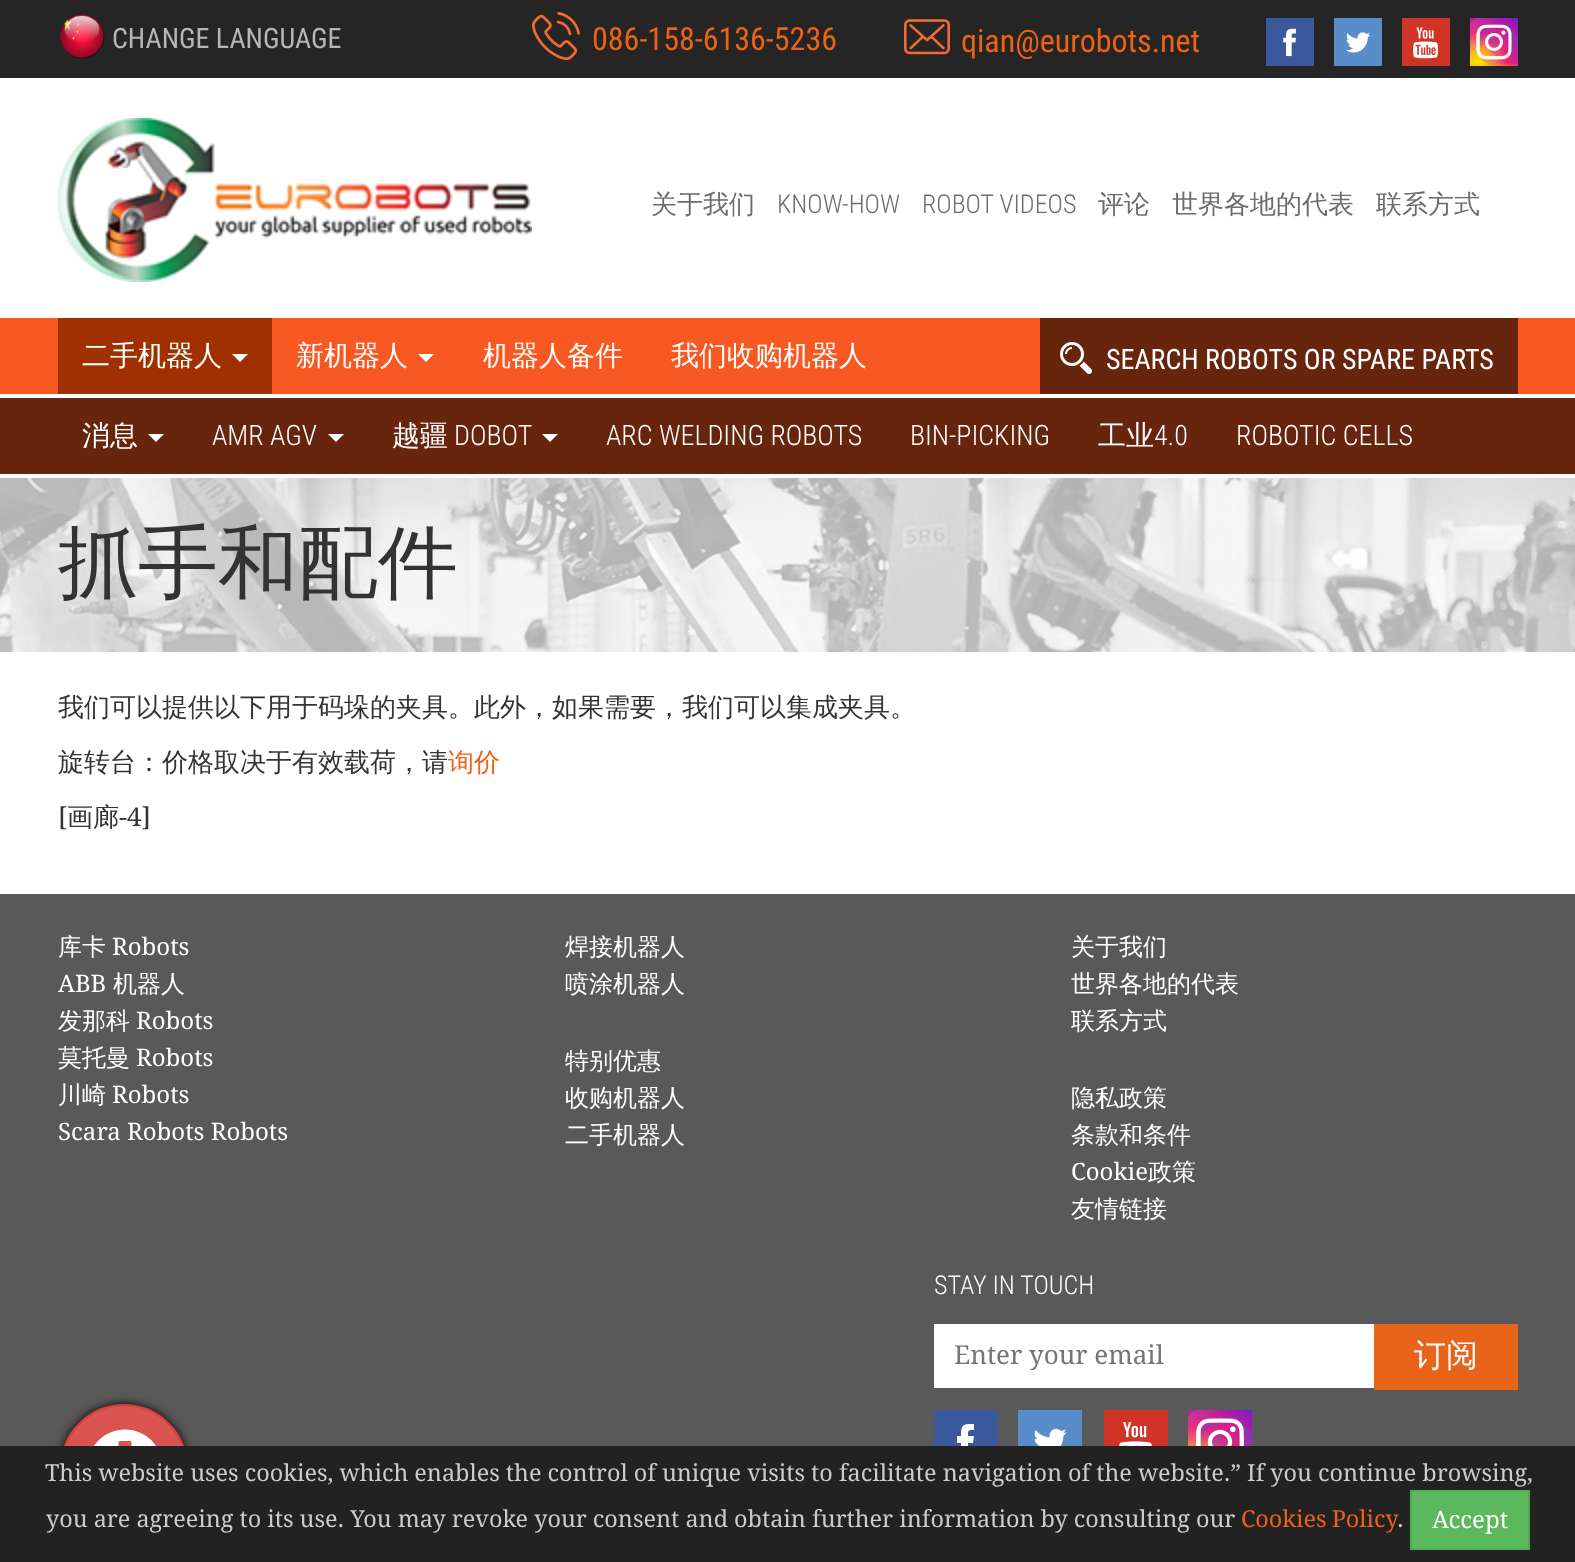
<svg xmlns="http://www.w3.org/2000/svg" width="1575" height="1562">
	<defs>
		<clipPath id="clip1"><rect x="954" y="1340" width="420" height="30" /></clipPath>
		<clipPath id="clip2"><rect x="934" y="1410" width="64" height="64" /></clipPath>
	</defs>
	<rect width="100%" height="100%" fill="#FFFFFF" />
	<rect x="0" y="0" width="1575" height="78" fill="#252525" />
	<image x="60" y="14" width="45" height="45" href="assets/img1.png" />
	<text x="112" y="48" font-family="Roboto Condensed" font-size="28" fill="#B6B6B6">CHANGE LANGUAGE</text>
	<image x="532" y="12" width="48" height="48" href="assets/img2.png" />
	<text x="592" y="50" font-family="Roboto Condensed" font-size="32" fill="#ED6213">086-158-6136-5236</text>
	<image x="904" y="19" width="46" height="36" href="assets/img3.png" />
	<text x="961" y="52" font-family="Roboto Condensed" font-size="32" fill="#ED6213">qian@eurobots.net</text>
	<rect x="1283" y="28" width="13" height="29" fill="#FFFFFF" />
	<image x="1266" y="18" width="48" height="48" href="assets/img4.png" />
	<rect x="1346" y="32" width="25" height="21" fill="#FFFFFF" />
	<image x="1334" y="18" width="48" height="48" href="assets/img5.png" />
	<rect x="1413" y="27" width="26" height="32" fill="#FFFFFF" />
	<image x="1402" y="18" width="48" height="48" href="assets/img6.png" />
	<image x="1470" y="18" width="48" height="48" href="assets/img7.png" />
	<image x="58" y="118" width="474" height="164" href="assets/img8.png" />
	<text x="651" y="213" font-family="WenQuanYi Zen Hei" font-size="26" font-weight="500" fill="#6C6C6C">关于我们</text>
	<g font-family="Roboto Condensed" font-size="26" font-weight="300" fill="#6C6C6C">
		<text x="777" y="213">KNOW-HOW</text>
		<text x="922" y="213">ROBOT VIDEOS</text>
	</g>
	<g font-family="WenQuanYi Zen Hei" font-size="26" font-weight="500" fill="#6C6C6C">
		<text x="1098" y="213">评论</text>
		<text x="1172" y="213">世界各地的代表</text>
		<text x="1376" y="213">联系方式</text>
	</g>
	<rect x="0" y="318" width="1575" height="76" fill="#F85922" />
	<rect x="58" y="318" width="214" height="76" fill="#A03000" />
	<text x="82" y="365" font-family="WenQuanYi Zen Hei" font-size="28" font-weight="500" fill="#FFFFFF">二手机器人</text>
	<path d="M232 354H248L240 362Z" fill="#FFFFFF" />
	<text x="296" y="365" font-family="WenQuanYi Zen Hei" font-size="28" font-weight="500" fill="#FFFFFF">新机器人</text>
	<path d="M418 354H434L426 362Z" fill="#FFFFFF" />
	<g font-family="WenQuanYi Zen Hei" font-size="28" font-weight="500" fill="#FFFFFF">
		<text x="483" y="365">机器人备件</text>
		<text x="671" y="365">我们收购机器人</text>
	</g>
	<rect x="1040" y="318" width="478" height="76" fill="#67250E" />
	<image x="1060" y="342" width="32" height="32" href="assets/img9.png" />
	<text x="1106" y="369" font-family="Roboto Condensed" font-size="28" fill="#FFFFFF">SEARCH ROBOTS OR SPARE PARTS</text>
	<rect x="0" y="398" width="1575" height="76" fill="#67250E" />
	<text x="82" y="445" font-family="WenQuanYi Zen Hei" font-size="28" font-weight="500" fill="#FFFFFF">消息</text>
	<path d="M148 434H164L156 442Z" fill="#FFFFFF" />
	<text x="212" y="445" font-family="Roboto Condensed" font-size="28" font-weight="300" fill="#FFFFFF">AMR AGV</text>
	<path d="M328 434H344L336 442Z" fill="#FFFFFF" />
	<text x="392" y="445" font-family="WenQuanYi Zen Hei" font-size="28" font-weight="500" fill="#FFFFFF">越疆</text>
	<text x="454" y="445" font-family="Roboto Condensed" font-size="28" font-weight="300" fill="#FFFFFF">DOBOT</text>
	<path d="M542 434H558L550 442Z" fill="#FFFFFF" />
	<g font-family="Roboto Condensed" font-size="28" font-weight="300" fill="#FFFFFF">
		<text x="606" y="445">ARC WELDING ROBOTS</text>
		<text x="910" y="445">BIN-PICKING</text>
	</g>
	<text x="1098" y="445" font-family="WenQuanYi Zen Hei" font-size="28" font-weight="500" fill="#FFFFFF">工业</text>
	<g font-family="Roboto Condensed" font-size="28" font-weight="300" fill="#FFFFFF">
		<text x="1154" y="445">4.0</text>
		<text x="1236" y="445">ROBOTIC CELLS</text>
	</g>
	<image x="0" y="478" width="1575" height="174" href="assets/img10.png" />
	<text x="58" y="590" font-family="WenQuanYi Zen Hei" font-size="80" font-weight="500" fill="#333333">抓手和配件</text>
	<g font-family="WenQuanYi Zen Hei" font-size="26" font-weight="500" fill="#333333">
		<text x="58" y="716">我们可以提供以下用于码垛的夹具。此外，如果需要，我们可以集成夹具。</text>
		<text x="58" y="771">旋转台：价格取决于有效载荷，请</text>
	</g>
	<text x="448" y="771" font-family="WenQuanYi Zen Hei" font-size="26" font-weight="500" fill="#ED6213">询价</text>
	<text x="58" y="826" font-family="Droid Serif" font-size="26" fill="#333333">[</text>
	<text x="67" y="826" font-family="WenQuanYi Zen Hei" font-size="26" font-weight="500" fill="#333333">画廊</text>
	<text x="119" y="826" font-family="Droid Serif" font-size="26" fill="#333333">-4]</text>
	<rect x="0" y="894" width="1575" height="552" fill="#595959" />
	<text x="58" y="955" font-family="WenQuanYi Zen Hei" font-size="24" font-weight="500" fill="#FFFFFF">库卡</text>
	<g font-family="Droid Serif" font-size="24" fill="#FFFFFF">
		<text x="112" y="955">Robots</text>
		<text x="58" y="992">ABB</text>
	</g>
	<g font-family="WenQuanYi Zen Hei" font-size="24" font-weight="500" fill="#FFFFFF">
		<text x="113" y="992">机器人</text>
		<text x="58" y="1029">发那科</text>
	</g>
	<text x="136" y="1029" font-family="Droid Serif" font-size="24" fill="#FFFFFF">Robots</text>
	<text x="58" y="1066" font-family="WenQuanYi Zen Hei" font-size="24" font-weight="500" fill="#FFFFFF">莫托曼</text>
	<text x="136" y="1066" font-family="Droid Serif" font-size="24" fill="#FFFFFF">Robots</text>
	<text x="58" y="1103" font-family="WenQuanYi Zen Hei" font-size="24" font-weight="500" fill="#FFFFFF">川崎</text>
	<g font-family="Droid Serif" font-size="24" fill="#FFFFFF">
		<text x="112" y="1103">Robots</text>
		<text x="58" y="1140">Scara Robots Robots</text>
	</g>
	<g font-family="WenQuanYi Zen Hei" font-size="24" font-weight="500" fill="#FFFFFF">
		<text x="565" y="955">焊接机器人</text>
		<text x="565" y="992">喷涂机器人</text>
		<text x="565" y="1069">特别优惠</text>
		<text x="565" y="1106">收购机器人</text>
		<text x="565" y="1143">二手机器人</text>
		<text x="1071" y="955">关于我们</text>
		<text x="1071" y="992">世界各地的代表</text>
		<text x="1071" y="1029">联系方式</text>
		<text x="1071" y="1106">隐私政策</text>
		<text x="1071" y="1143">条款和条件</text>
	</g>
	<text x="1071" y="1180" font-family="Droid Serif" font-size="24" fill="#FFFFFF">Cookie</text>
	<g font-family="WenQuanYi Zen Hei" font-size="24" font-weight="500" fill="#FFFFFF">
		<text x="1148" y="1180">政策</text>
		<text x="1071" y="1217">友情链接</text>
	</g>
	<text x="934" y="1294" font-family="Roboto Condensed" font-size="26" font-weight="300" fill="#FFFFFF">STAY IN TOUCH</text>
	<rect x="934" y="1324" width="440" height="64" fill="#FFFFFF" />
	<g clip-path="url(#clip1)">
		<text x="954" y="1364" font-family="Droid Serif" font-size="26" fill="#757575">Enter your email</text>
	</g>
	<rect x="1374" y="1324" width="144" height="66" fill="#E8641B" />
	<text x="1414" y="1366" font-family="WenQuanYi Zen Hei" font-size="32" font-weight="500" fill="#FFFFFF">订阅</text>
	<rect x="957" y="1424" width="17" height="22" fill="#FFFFFF" />
	<g clip-path="url(#clip2)">
		<path d="M961 1461H968V1443H973L974 1436H968C968 1430 968 1430 974 1430V1424C963 1424 961 1424 961 1436H957V1443H961ZM931 1409H999V1477H931Z" fill="#3A589B" fill-rule="evenodd" />
	</g>
	<rect x="1034" y="1428" width="33" height="18" fill="#FFFFFF" />
	<image x="1018" y="1410" width="64" height="36" href="assets/img11.png" />
	<rect x="1119" y="1422" width="33" height="24" fill="#FFFFFF" />
	<image x="1104" y="1410" width="64" height="36" href="assets/img12.png" />
	<image x="1188" y="1410" width="64" height="36" href="assets/img13.png" />
	<rect x="60" y="1404" width="128" height="128" rx="64" fill="#000000" filter="blur(5px)" />
	<circle cx="124" cy="1468" r="63" fill="#D9534F" stroke="#D43F3A" stroke-width="2" />
	<image x="94" y="1429" width="62" height="17" href="assets/img14.png" />
	<rect x="0" y="1446" width="1575" height="116" fill="#222222" />
	<g font-family="Droid Serif" font-size="23.4" fill="#CCCCCC">
		<text x="45" y="1481">This website uses cookies, which enables the control of unique visits to facilitate navigation of the website.” If you continue browsing,</text>
		<text x="46" y="1527">you are agreeing to its use. You may revoke your consent and obtain further information by consulting our</text>
	</g>
	<text x="1241" y="1527" word-spacing="-1" font-family="Droid Serif" font-size="23.4" fill="#ED6213">Cookies Policy</text>
	<text x="1397" y="1527" font-family="Droid Serif" font-size="23.4" fill="#CCCCCC">.</text>
	<rect x="1411" y="1491" width="118" height="58" fill="#5CB85C" stroke="#4CAE4C" stroke-width="2" />
	<text x="1432" y="1528" font-family="Droid Serif" font-size="24" fill="#FFFFFF">Accept</text>
</svg>
